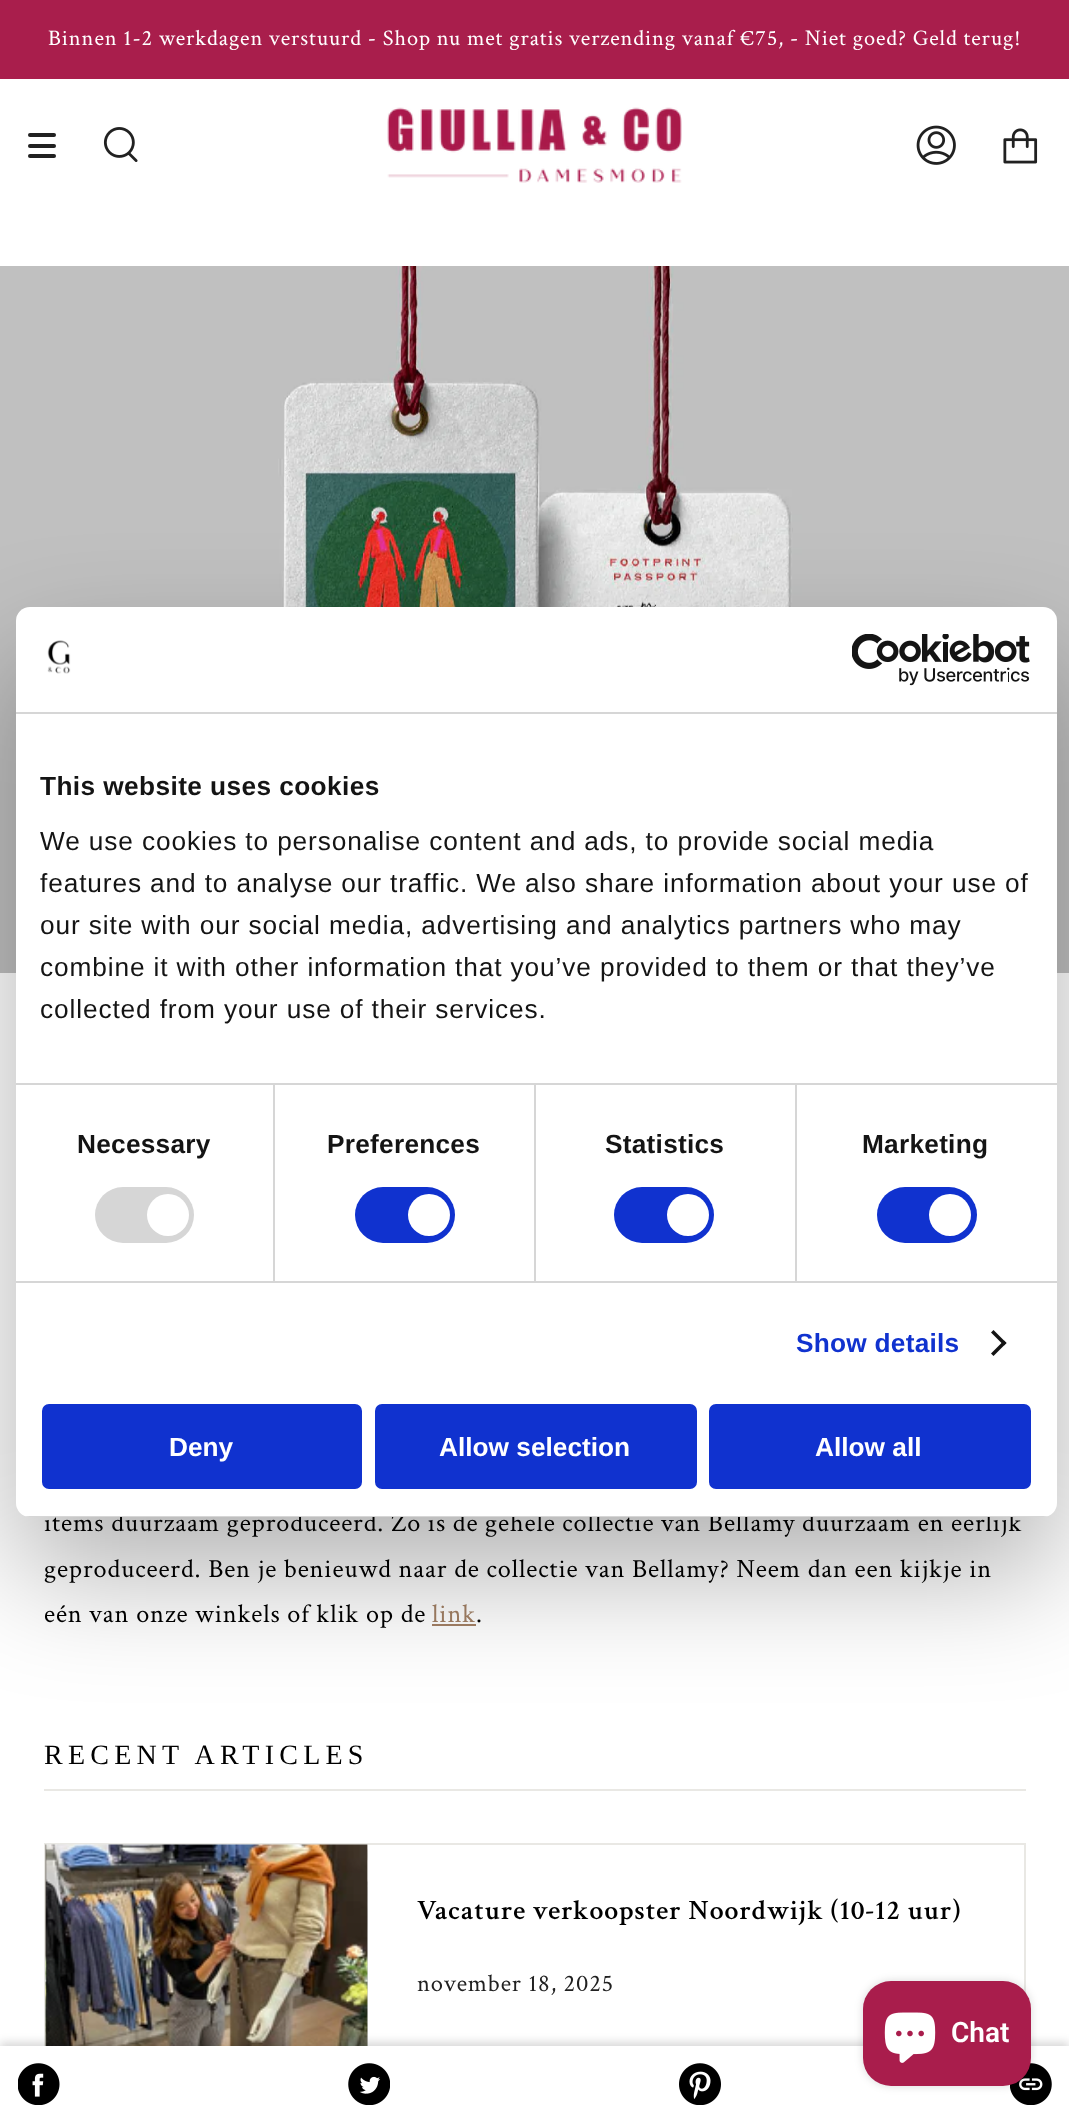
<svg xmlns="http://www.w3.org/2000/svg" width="1069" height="2122">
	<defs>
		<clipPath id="clip1"><rect x="16" y="607" width="1041" height="910" rx="14" /></clipPath>
	</defs>
	<rect width="100%" height="100%" fill="#FFFFFF" />
	<rect x="0" y="0" width="1069" height="79" fill="#A91E4C" />
	<text x="48" y="45" font-family="Crimson Text" font-size="22.4" letter-spacing="0.88" fill="#FFFFFF">Binnen 1-2 werkdagen verstuurd - Shop nu met gratis verzending vanaf €75, - Niet goed? Geld terug!</text>
	<rect x="28" y="133" width="28" height="4" rx="2" fill="#212121" />
	<rect x="28" y="144" width="28" height="4" rx="2" fill="#212121" />
	<rect x="28" y="154" width="28" height="4" rx="2" fill="#212121" />
	<image x="103" y="127" width="35" height="35" href="assets/img1.png" />
	<image x="387" y="107" width="295" height="76" href="assets/img2.png" />
	<image x="916" y="125" width="40" height="40" href="assets/img3.png" />
	<image x="1003" y="128" width="35" height="36" href="assets/img4.png" />
	<image x="0" y="266" width="1069" height="707" href="assets/img5.png" />
	<g font-family="Crimson Text" font-size="26.25" letter-spacing="0.88" fill="#000000">
		<text x="44" y="1531">items duurzaam geproduceerd. Zo is de gehele collectie van Bellamy duurzaam en eerlijk</text>
		<text x="44" y="1577">geproduceerd. Ben je benieuwd naar de collectie van Bellamy? Neem dan een kijkje in</text>
		<text x="44" y="1622">eén van onze winkels of klik op de</text>
	</g>
	<text x="432" y="1622" font-family="Crimson Text" font-size="26.25" letter-spacing="0.88" fill="#A38165">link</text>
	<rect x="432" y="1624" width="44" height="2" fill="#A38165" />
	<text x="476" y="1622" font-family="Crimson Text" font-size="26.25" letter-spacing="0.88" fill="#000000">.</text>
	<rect x="45" y="1844" width="980" height="208" fill="none" stroke="#E9E8E4" stroke-width="2" />
	<image x="45" y="1844" width="323" height="202" href="assets/img10.png" />
	<rect x="0" y="2042" width="1069" height="77" fill="#000000" fill-opacity="0.15" filter="blur(4.5px)" />
	<rect x="0" y="2046" width="1069" height="76" fill="#FFFFFF" />
	<image x="18" y="2063" width="42" height="42" href="assets/img6.png" />
	<image x="348" y="2063" width="42" height="42" href="assets/img7.png" />
	<image x="679" y="2063" width="42" height="42" href="assets/img8.png" />
	<image x="1010" y="2063" width="42" height="42" href="assets/img9.png" />
	<rect x="44" y="1789" width="982" height="2" fill="#E9E8E4" />
	<text x="44" y="1764" font-family="Liberation Serif" font-size="28" letter-spacing="5.25" fill="#000000">RECENT ARTICLES</text>
	<text x="417" y="1919" font-family="Crimson Text" font-size="28" font-weight="600" letter-spacing="0.88" fill="#000000">Vacature verkoopster Noordwijk (10-12 uur)</text>
	<text x="417" y="1991" font-family="Crimson Text" font-size="24.5" letter-spacing="0.88" fill="#212121">november 18, 2025</text>
	<rect x="16" y="663" width="1041" height="910" rx="14" fill="#000000" fill-opacity="0.3" filter="blur(59.5px)" />
	<rect x="16" y="607" width="1041" height="910" rx="14" fill="#FFFFFF" />
	<rect x="16" y="712" width="1041" height="2" fill="#D6D6D6" />
	<image x="47" y="640" width="24" height="34" href="assets/img11.png" />
	<image x="852" y="634" width="178" height="52" href="assets/img12.png" />
	<rect x="16" y="1083" width="1041" height="2" fill="#D6D6D6" />
	<text x="40" y="795" font-family="Liberation Sans" font-size="26.25" font-weight="700" letter-spacing="0.4" fill="#141414">This website uses cookies</text>
	<g font-family="Liberation Sans" font-size="26.25" letter-spacing="0.88" fill="#141414">
		<text x="40" y="850">We use cookies to personalise content and ads, to provide social media</text>
		<text x="40" y="892">features and to analyse our traffic. We also share information about your use of</text>
		<text x="40" y="934">our site with our social media, advertising and analytics partners who may</text>
		<text x="40" y="976">combine it with other information that you’ve provided to them or that they’ve</text>
		<text x="40" y="1018">collected from your use of their services.</text>
	</g>
	<rect x="16" y="1281" width="1041" height="2" fill="#D6D6D6" />
	<rect x="273" y="1085" width="2" height="196" fill="#D6D6D6" />
	<text x="77" y="1153" font-family="Liberation Sans" font-size="26.25" font-weight="700" letter-spacing="0.25" fill="#141414">Necessary</text>
	<rect x="95" y="1187" width="99" height="56" rx="28" fill="#D6D6D6" />
	<circle cx="168" cy="1215" r="21" fill="#FFFFFF" />
	<rect x="534" y="1085" width="2" height="196" fill="#D6D6D6" />
	<text x="327" y="1153" font-family="Liberation Sans" font-size="26.25" font-weight="700" letter-spacing="0.25" fill="#141414">Preferences</text>
	<rect x="355" y="1187" width="100" height="56" rx="28" fill="#1032CF" />
	<circle cx="429" cy="1215" r="21" fill="#FFFFFF" />
	<rect x="795" y="1085" width="2" height="196" fill="#D6D6D6" />
	<text x="605" y="1153" font-family="Liberation Sans" font-size="26.25" font-weight="700" letter-spacing="0.25" fill="#141414">Statistics</text>
	<rect x="614" y="1187" width="100" height="56" rx="28" fill="#1032CF" />
	<circle cx="688" cy="1215" r="21" fill="#FFFFFF" />
	<text x="862" y="1153" font-family="Liberation Sans" font-size="26.25" font-weight="700" letter-spacing="0.25" fill="#141414">Marketing</text>
	<rect x="877" y="1187" width="100" height="56" rx="28" fill="#1032CF" />
	<circle cx="950" cy="1215" r="21" fill="#FFFFFF" />
	<text x="796" y="1352" font-family="Liberation Sans" font-size="26.25" font-weight="700" letter-spacing="0.25" fill="#1032CF">Show details</text>
	<path d="M993.5 1330L1006.5 1343L1004 1345.5L991 1332.5Z" fill="#141414" />
	<path d="M1004 1340.5L1006.5 1343L993.5 1356L991 1353.5Z" fill="#141414" />
	<g clip-path="url(#clip1)">
		<rect x="25" y="1516" width="1023" height="1" fill="#D6D6D6" />
	</g>
	<rect x="44" y="1406" width="316" height="81" rx="5" fill="#1032CF" stroke="#1032CF" stroke-width="4" />
	<text x="169" y="1456" font-family="Liberation Sans" font-size="26.25" font-weight="700" fill="#FFFFFF">Deny</text>
	<rect x="377" y="1406" width="318" height="81" rx="5" fill="#1032CF" stroke="#1032CF" stroke-width="4" />
	<text x="439" y="1456" font-family="Liberation Sans" font-size="26.25" font-weight="700" fill="#FFFFFF">Allow selection</text>
	<rect x="711" y="1406" width="318" height="81" rx="5" fill="#1032CF" stroke="#1032CF" stroke-width="4" />
	<text x="815" y="1456" font-family="Liberation Sans" font-size="26.25" font-weight="700" fill="#FFFFFF">Allow all</text>
	<rect x="863" y="1981" width="168" height="105" rx="28" fill="#000000" fill-opacity="0.15" filter="blur(4.5px)" />
	<rect x="863" y="1981" width="168" height="105" rx="28" fill="#A91D4C" />
	<image x="884" y="2012" width="52" height="51" href="assets/img13.png" />
	<text x="951" y="2042" font-family="Roboto" font-size="28" font-weight="600" fill="#FFFFFF">Chat</text>
</svg>
